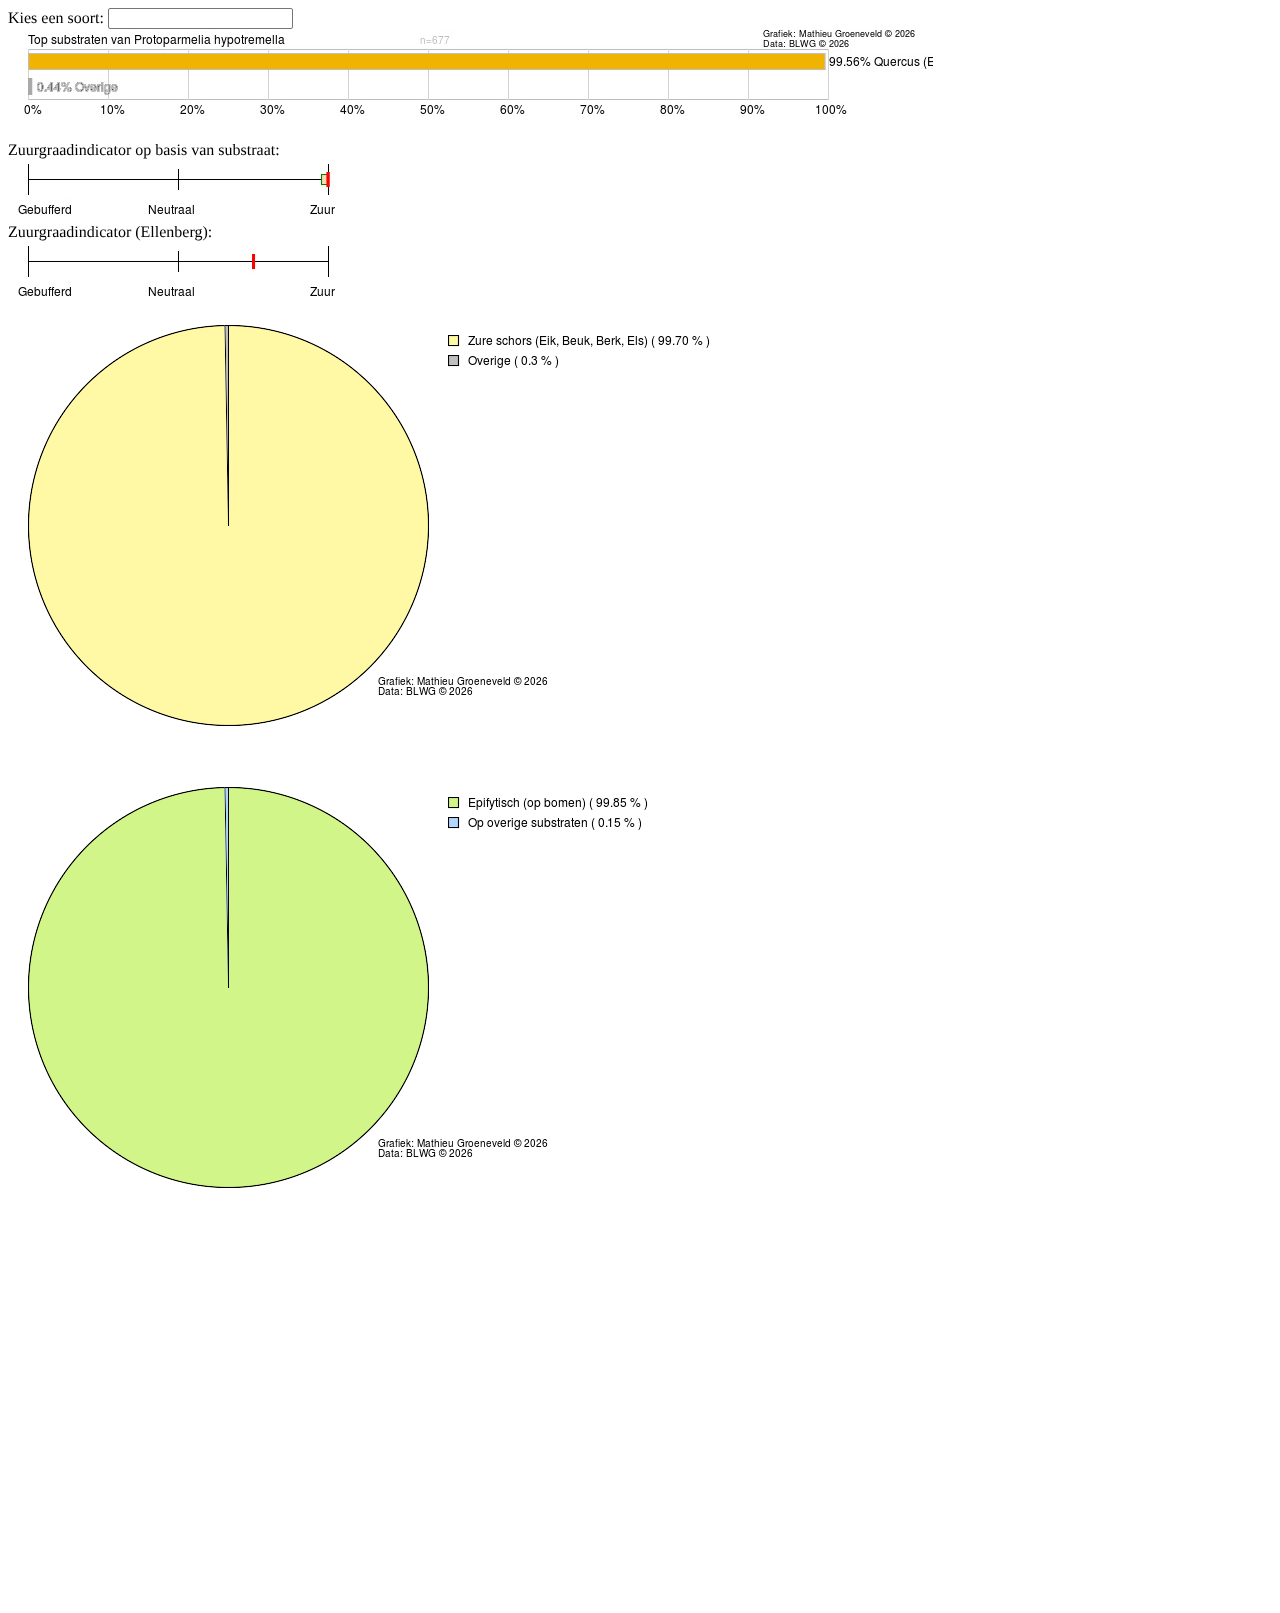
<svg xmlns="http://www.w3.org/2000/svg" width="1280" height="1613">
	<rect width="100%" height="100%" fill="#FFFFFF" />
	<text x="8" y="23" font-family="Liberation Serif" font-size="16" fill="#000000">Kies een soort:</text>
	<rect x="108.5" y="8.5" width="184" height="20" rx="1.5" fill="none" stroke="#767676" />
	<image x="24" y="29" width="909" height="88" href="assets/img1.png" />
	<text x="8" y="155" font-family="Liberation Serif" font-size="16" fill="#000000">Zuurgraadindicator op basis van substraat:</text>
	<image x="17" y="159" width="319" height="56" href="assets/img2.png" />
	<text x="8" y="237" font-family="Liberation Serif" font-size="16" fill="#000000">Zuurgraadindicator (Ellenberg):</text>
	<image x="17" y="241" width="319" height="56" href="assets/img3.png" />
	<image x="28" y="325" width="682" height="401" href="assets/img4.png" />
	<image x="28" y="787" width="620" height="401" href="assets/img5.png" />
</svg>
